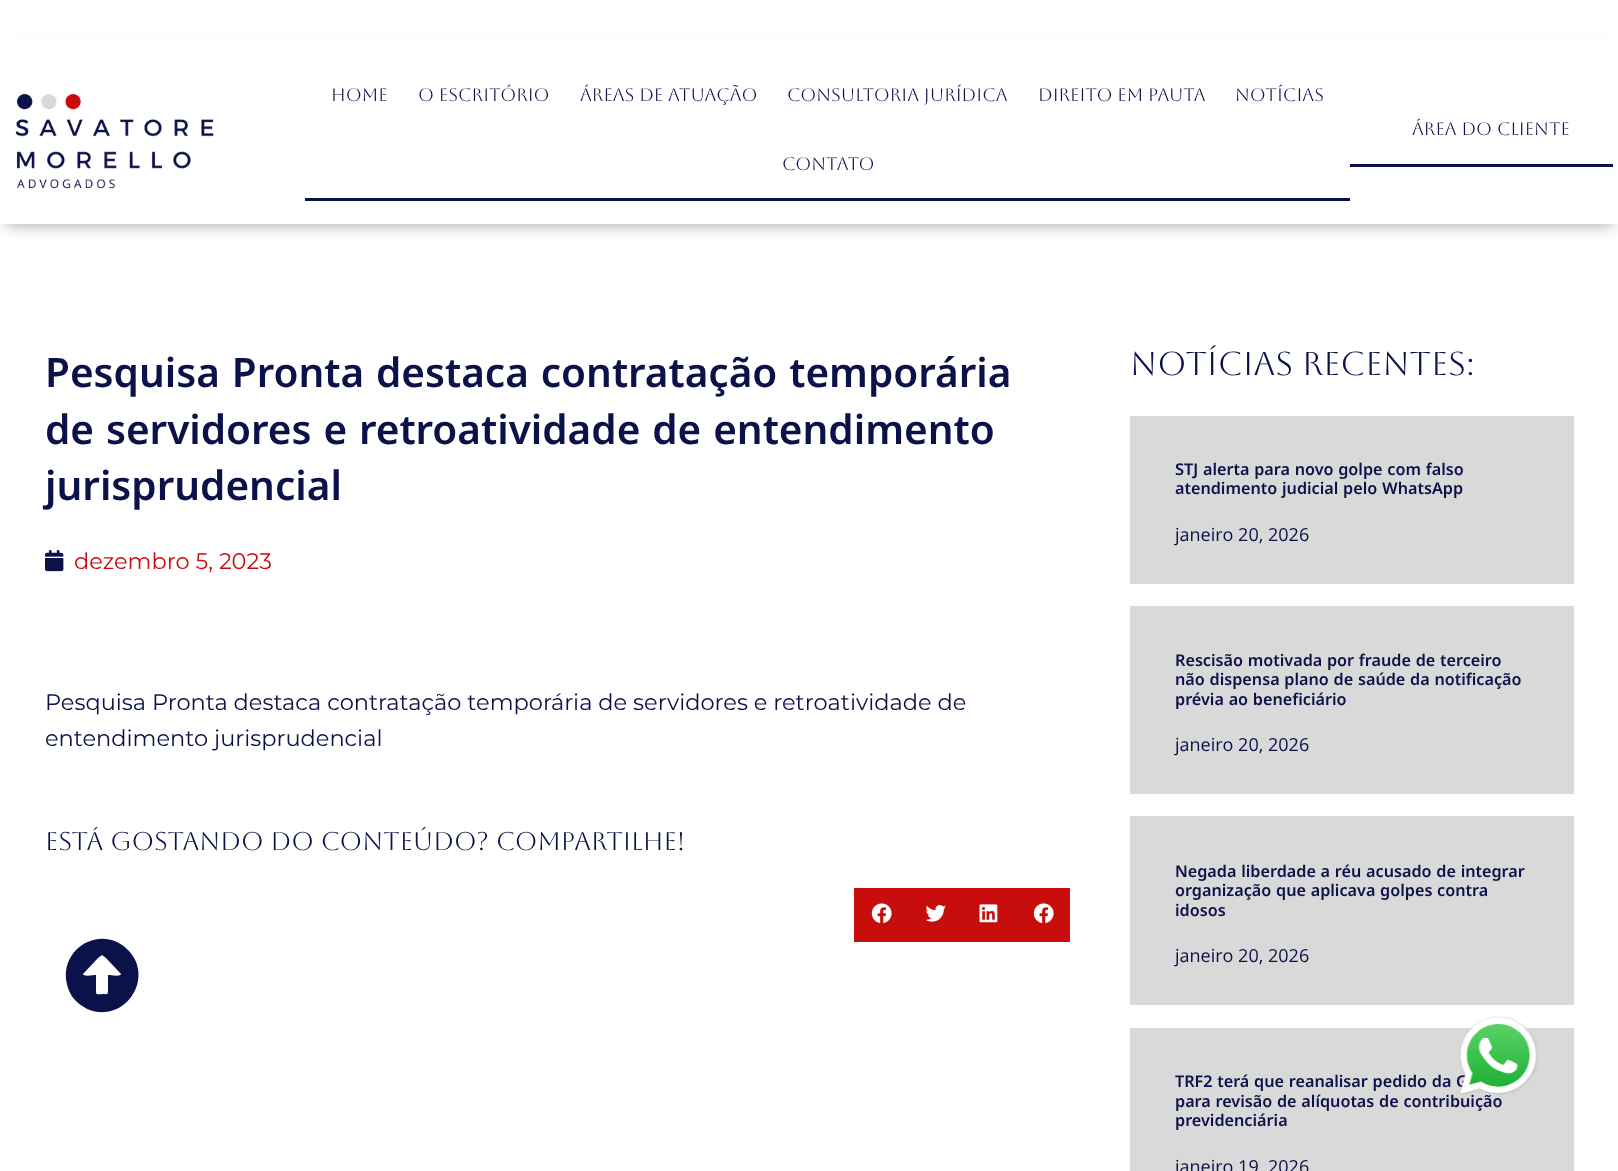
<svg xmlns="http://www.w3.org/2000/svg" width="1618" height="1171">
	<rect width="100%" height="100%" fill="#FFFFFF" />
	<rect x="6" y="51" width="1607" height="174" fill="#000000" fill-opacity="0.35" filter="blur(8px)" />
	<rect x="0" y="38" width="1618" height="186" fill="#FFFFFF" />
	<image x="15" y="93" width="199" height="96" href="assets/img1.png" />
	<rect x="305" y="198" width="1045" height="3" fill="#0B1149" />
	<g font-family="Aboreto" font-size="18" fill="#0B1149">
		<text x="331" y="101">Home</text>
		<text x="418" y="101">O Escritório</text>
		<text x="580" y="101">Áreas de Atuação</text>
		<text x="787" y="101">Consultoria Jurídica</text>
		<text x="1038" y="101">Direito em Pauta</text>
		<text x="1235" y="101">Notícias</text>
		<text x="782" y="170">Contato</text>
	</g>
	<rect x="1350" y="164" width="263" height="3" fill="#0B1149" />
	<text x="1412" y="135" font-family="Aboreto" font-size="18" fill="#0B1149">Área do Cliente</text>
	<g font-family="Noto Sans Canadian Aboriginal" font-size="40.5" font-weight="600" fill="#0B1149">
		<text x="45" y="387">Pesquisa Pronta destaca contratação temporária</text>
		<text x="45" y="444">de servidores e retroatividade de entendimento</text>
		<text x="45" y="500">jurisprudencial</text>
	</g>
	<image x="45" y="550" width="19" height="22" href="assets/img2.png" />
	<text x="74" y="569" font-family="Montserrat" font-size="22.5" fill="#C80D0D">dezembro 5, 2023</text>
	<g font-family="Montserrat" font-size="22.5" fill="#0B1149">
		<text x="45" y="710">Pesquisa Pronta destaca contratação temporária de servidores e retroatividade de</text>
		<text x="45" y="746">entendimento jurisprudencial</text>
	</g>
	<text x="45" y="850" font-family="Aboreto" font-size="25.5" fill="#0B1149">Está gostando do conteúdo? Compartilhe!</text>
	<rect x="854" y="888" width="216" height="54" fill="#C80D0D" />
	<image x="871" y="903" width="21" height="21" href="assets/img3.png" />
	<image x="925" y="905" width="21" height="17" href="assets/img4.png" />
	<image x="979" y="904" width="19" height="19" href="assets/img5.png" />
	<image x="1033" y="903" width="21" height="21" href="assets/img3.png" />
	<text x="1130" y="375" font-family="Aboreto" font-size="33" fill="#0B1149">Notícias Recentes:</text>
	<rect x="1130" y="416" width="444" height="168" fill="#D9D9D9" />
	<g font-family="Noto Sans Canadian Aboriginal" font-size="16.2" font-weight="600" fill="#0B1149">
		<text x="1175" y="475">STJ alerta para novo golpe com falso</text>
		<text x="1175" y="494">atendimento judicial pelo WhatsApp</text>
	</g>
	<text x="1175" y="541" font-family="Open Sans" font-size="18" fill="#0B1149">janeiro 20, 2026</text>
	<rect x="1130" y="606" width="444" height="188" fill="#D9D9D9" />
	<g font-family="Noto Sans Canadian Aboriginal" font-size="16.2" font-weight="600" fill="#0B1149">
		<text x="1175" y="666">Rescisão motivada por fraude de terceiro</text>
		<text x="1175" y="685">não dispensa plano de saúde da notificação</text>
		<text x="1175" y="705">prévia ao beneficiário</text>
	</g>
	<text x="1175" y="751" font-family="Open Sans" font-size="18" fill="#0B1149">janeiro 20, 2026</text>
	<rect x="1130" y="816" width="444" height="189" fill="#D9D9D9" />
	<g font-family="Noto Sans Canadian Aboriginal" font-size="16.2" font-weight="600" fill="#0B1149">
		<text x="1175" y="877">Negada liberdade a réu acusado de integrar</text>
		<text x="1175" y="896">organização que aplicava golpes contra</text>
		<text x="1175" y="916">idosos</text>
	</g>
	<text x="1175" y="962" font-family="Open Sans" font-size="18" fill="#0B1149">janeiro 20, 2026</text>
	<rect x="1130" y="1028" width="444" height="143" fill="#D9D9D9" />
	<g font-family="Noto Sans Canadian Aboriginal" font-size="16.2" font-weight="600" fill="#0B1149">
		<text x="1175" y="1087">TRF2 terá que reanalisar pedido da G</text>
		<text x="1175" y="1107">para revisão de alíquotas de contribuição</text>
		<text x="1175" y="1126">previdenciária</text>
	</g>
	<text x="1175" y="1173" font-family="Open Sans" font-size="18" fill="#0B1149">janeiro 19, 2026</text>
	<path d="M76 1001C70 995 67 987 66 979C63 945 104 925 128 950C152 974 132 1015 98 1012C90 1011 82 1007 76 1001ZM108 992V975C110 975 121 977 121 974L106 958L102 955L98 958L83 974C83 977 94 975 96 975V990C96 996 97 994 104 994C105 994 108 995 108 992Z" fill="#0B1149" />
	<image x="1459" y="1016" width="79" height="79" href="assets/img6.png" />
</svg>
